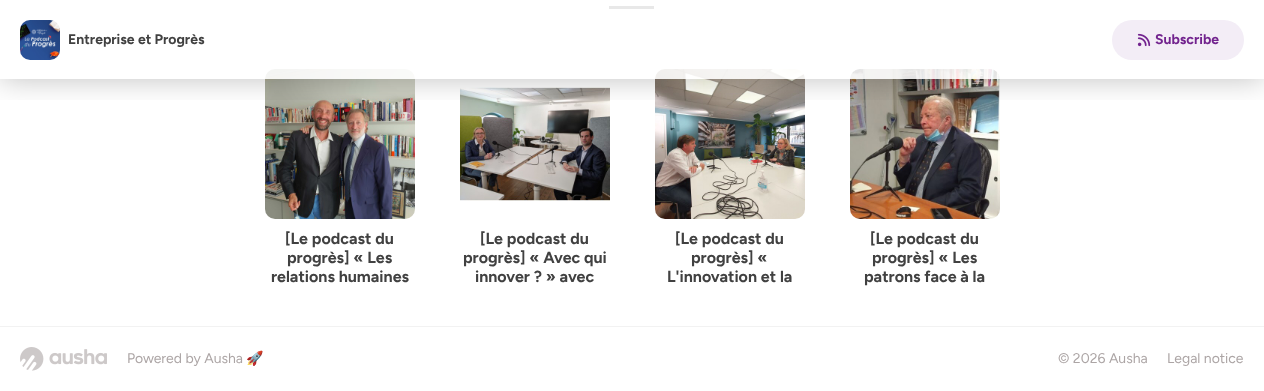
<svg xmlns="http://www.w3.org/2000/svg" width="1264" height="391">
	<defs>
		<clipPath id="clip1"><rect x="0" y="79" width="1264" height="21" /></clipPath>
	</defs>
	<rect width="100%" height="100%" fill="#FFFFFF" />
	<rect x="609" y="6" width="45" height="3" fill="#414141" />
	<image x="265" y="69" width="150" height="150" href="assets/img3.png" />
	<image x="460" y="87" width="150" height="114" href="assets/img4.png" />
	<image x="655" y="69" width="150" height="150" href="assets/img5.png" />
	<image x="850" y="69" width="150" height="150" href="assets/img6.png" />
	<g clip-path="url(#clip1)">
		<rect x="0" y="0" width="1264" height="79" fill="#000000" fill-opacity="0.25" filter="blur(15px)" />
	</g>
	<rect x="265" y="6" width="735" height="73" fill="#FFFFFF" fill-opacity="0.88" />
	<image x="20" y="20" width="40" height="40" href="assets/img1.png" />
	<text x="68" y="44" font-family="Figtree" font-size="14" font-weight="700" fill="#414141">Entreprise et Progrès</text>
	<rect x="1112" y="20" width="132" height="40" rx="20" fill="#F3EDF6" />
	<image x="1137" y="33" width="14" height="14" href="assets/img2.png" />
	<text x="1155" y="44" font-family="Figtree" font-size="14" font-weight="700" fill="#72238E">Subscribe</text>
	<g font-family="Figtree" font-size="16" font-weight="700" fill="#414141">
		<text x="285" y="244">[Le podcast du</text>
		<text x="287" y="263">progrès] « Les</text>
		<text x="271" y="282">relations humaines</text>
		<text x="480" y="244">[Le podcast du</text>
		<text x="463" y="263">progrès] « Avec qui</text>
		<text x="475" y="282">innover ? » avec</text>
		<text x="675" y="244">[Le podcast du</text>
		<text x="691" y="263">progrès] «</text>
		<text x="667" y="282">L'innovation et la</text>
		<text x="870" y="244">[Le podcast du</text>
		<text x="872" y="263">progrès] « Les</text>
		<text x="864" y="282">patrons face à la</text>
	</g>
	<rect x="0" y="326" width="1264" height="1" fill="#F2F2F2" />
	<image x="20" y="347" width="87" height="24" href="assets/img7.png" />
	<text x="127" y="363" font-family="Figtree" font-size="14" fill="#ACA5A5">Powered by Ausha</text>
	<text x="246" y="363" font-family="Noto Color Emoji" font-size="14" fill="#ACA5A5">🚀</text>
	<g font-family="Figtree" font-size="14" fill="#ACA5A5">
		<text x="1058" y="363">© 2026 Ausha</text>
		<text x="1167" y="363">Legal notice</text>
	</g>
</svg>
